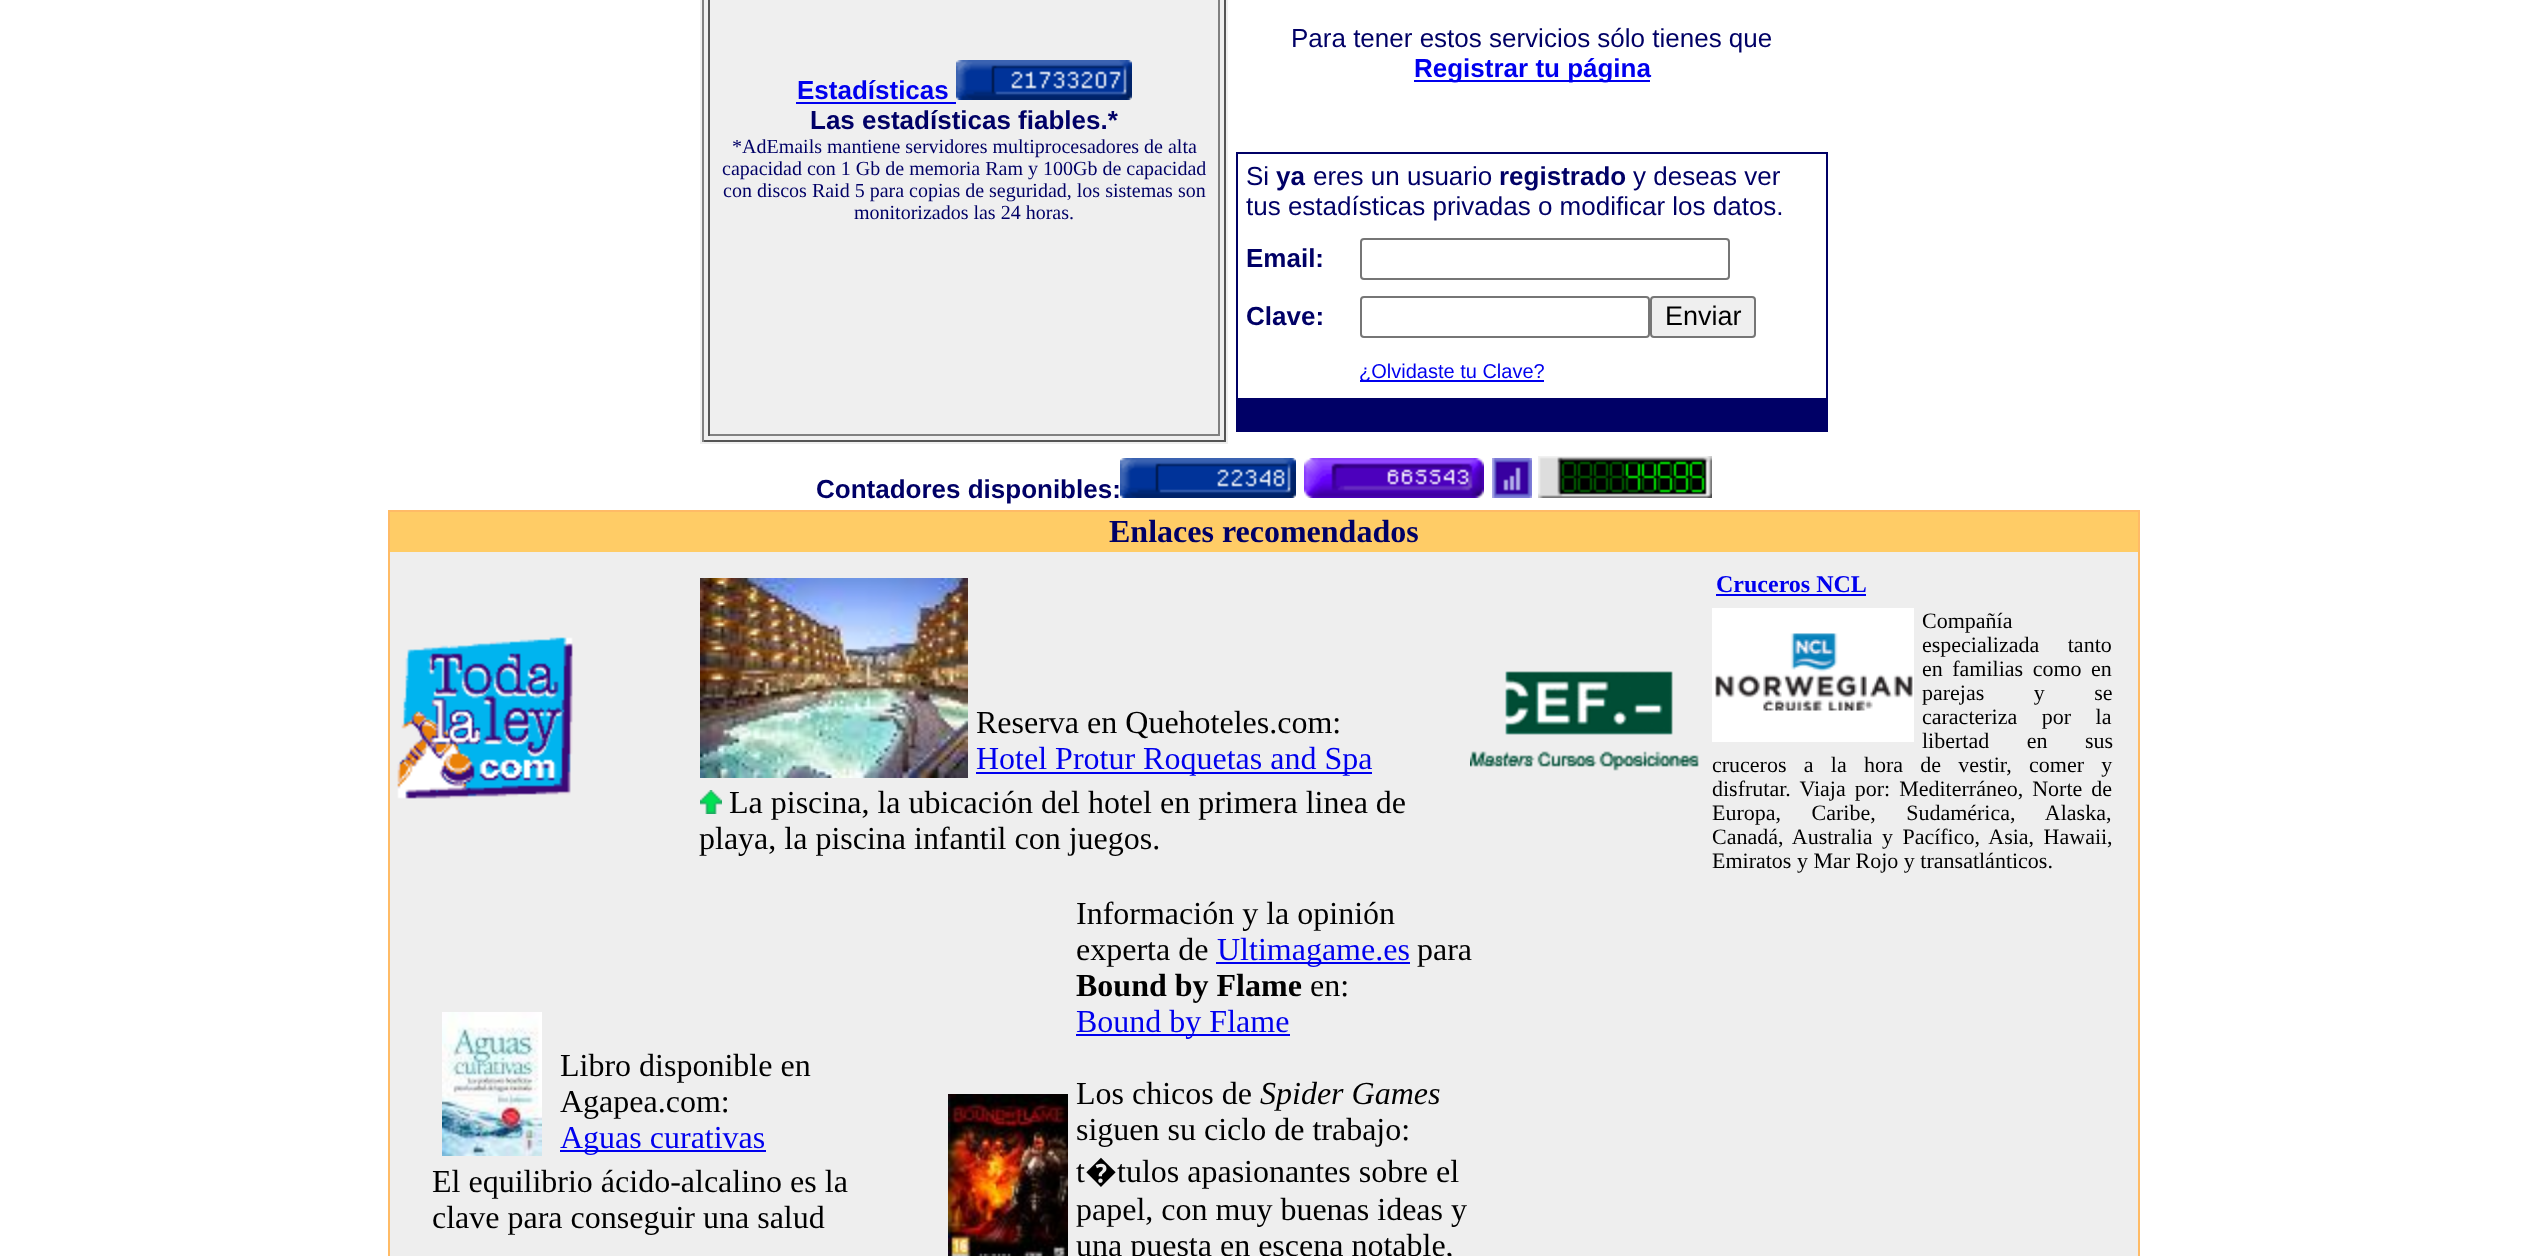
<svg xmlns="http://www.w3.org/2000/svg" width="2528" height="1256">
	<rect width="100%" height="100%" fill="#FFFFFF" />
	<rect x="700" y="0" width="528" height="444" fill="#EFEFEF" />
	<rect x="1224" y="0" width="2" height="442" fill="#555555" />
	<rect x="702" y="440" width="524" height="2" fill="#555555" />
	<rect x="702" y="0" width="2" height="442" fill="#808080" />
	<rect x="1218" y="0" width="2" height="436" fill="#808080" />
	<rect x="708" y="434" width="512" height="2" fill="#808080" />
	<rect x="708" y="0" width="2" height="436" fill="#555555" />
	<text x="797" y="99" font-family="Liberation Sans" font-size="26" font-weight="700" fill="#0000EE">Estadísticas</text>
	<rect x="796" y="102" width="160" height="2" fill="#0000EE" />
	<image x="956" y="60" width="176" height="40" href="assets/img1.png" />
	<text x="810" y="129" font-family="Liberation Sans" font-size="26" font-weight="700" fill="#000066">Las estadísticas fiables.*</text>
	<g font-family="Liberation Serif" font-size="20" fill="#000066">
		<text x="732" y="153">*AdEmails mantiene servidores multiprocesadores de alta</text>
		<text x="722" y="175">capacidad con 1 Gb de memoria Ram y 100Gb de capacidad</text>
		<text x="723" y="197">con discos Raid 5 para copias de seguridad, los sistemas son</text>
		<text x="854" y="219">monitorizados las 24 horas.</text>
	</g>
	<text x="1291" y="47" font-family="Liberation Sans" font-size="26" fill="#000066">Para tener estos servicios sólo tienes que</text>
	<rect x="1414" y="80" width="236" height="2" fill="#0000EE" />
	<text x="1414" y="77" font-family="Liberation Sans" font-size="26" font-weight="700" fill="#0000EE">Registrar tu página</text>
	<rect x="1236" y="152" width="592" height="280" fill="#000066" />
	<rect x="1238" y="154" width="588" height="244" fill="#FFFFFF" />
	<text x="1246" y="185" font-family="Liberation Sans" font-size="26" fill="#000066">Si</text>
	<text x="1276" y="185" font-family="Liberation Sans" font-size="26" font-weight="700" fill="#000066">ya</text>
	<text x="1313" y="185" font-family="Liberation Sans" font-size="26" fill="#000066">eres un usuario</text>
	<text x="1499" y="185" font-family="Liberation Sans" font-size="26" font-weight="700" fill="#000066">registrado</text>
	<g font-family="Liberation Sans" font-size="26" fill="#000066">
		<text x="1633" y="185">y deseas ver</text>
		<text x="1246" y="215">tus estadísticas privadas o modificar los datos.</text>
	</g>
	<text x="1246" y="267" font-family="Liberation Sans" font-size="26" font-weight="700" fill="#000066">Email:</text>
	<rect x="1361" y="239" width="368" height="40" rx="3" fill="none" stroke="#767676" stroke-width="2" />
	<text x="1246" y="325" font-family="Liberation Sans" font-size="26" font-weight="700" fill="#000066">Clave:</text>
	<rect x="1361" y="297" width="288" height="40" rx="3" fill="none" stroke="#767676" stroke-width="2" />
	<rect x="1651" y="297" width="104" height="40" rx="3" fill="#EFEFEF" stroke="#767676" stroke-width="2" />
	<text x="1665" y="325" font-family="Liberation Sans" font-size="27" fill="#000000">Enviar</text>
	<rect x="1360" y="380" width="184" height="2" fill="#0000EE" />
	<text x="1359" y="378" font-family="Liberation Sans" font-size="20" fill="#0000EE">¿Olvidaste tu Clave?</text>
	<text x="816" y="498" font-family="Liberation Sans" font-size="26" font-weight="700" fill="#000066">Contadores disponibles:</text>
	<image x="1120" y="458" width="176" height="40" href="assets/img2.png" />
	<image x="1304" y="458" width="180" height="40" href="assets/img3.png" />
	<image x="1492" y="458" width="40" height="40" href="assets/img4.png" />
	<image x="1538" y="456" width="174" height="42" href="assets/img5.png" />
	<rect x="388" y="510" width="1752" height="746" fill="#FFBB66" />
	<rect x="390" y="512" width="1748" height="40" fill="#FFCC66" />
	<text x="1109" y="542" font-family="Liberation Serif" font-size="32" font-weight="700" fill="#000066">Enlaces recomendados</text>
	<rect x="390" y="552" width="1748" height="704" fill="#EEEEEE" />
	<image x="397" y="637" width="176" height="162" href="assets/img6.png" />
	<image x="700" y="578" width="268" height="200" href="assets/img7.png" />
	<text x="976" y="733" font-family="Liberation Serif" font-size="32" fill="#000000">Reserva en Quehoteles.com:</text>
	<rect x="976" y="772" width="396" height="2" fill="#0000EE" />
	<text x="976" y="769" font-family="Liberation Serif" font-size="32" fill="#0000EE">Hotel Protur Roquetas and Spa</text>
	<image x="700" y="790" width="22" height="24" href="assets/img8.png" />
	<g font-family="Liberation Serif" font-size="32" fill="#000000">
		<text x="729" y="813">La piscina, la ubicación del hotel en primera linea de</text>
		<text x="699" y="849">playa, la piscina infantil con juegos.</text>
	</g>
	<image x="1470" y="671" width="229" height="100" href="assets/img9.png" />
	<text x="1716" y="592" font-family="Liberation Serif" font-size="24" font-weight="700" fill="#0000EE">Cruceros NCL</text>
	<rect x="1716" y="594" width="150" height="2" fill="#0000EE" />
	<image x="1712" y="608" width="202" height="134" href="assets/img10.png" />
	<g font-family="Liberation Serif" font-size="22" fill="#000000">
		<text x="1922" y="628">Compañía</text>
		<text x="1922" y="652" word-spacing="23">especializada tanto</text>
		<text x="1922" y="676" word-spacing="4">en familias como en</text>
		<text x="1922" y="700" word-spacing="44">parejas y se</text>
		<text x="1922" y="724" word-spacing="19">caracteriza por la</text>
		<text x="1922" y="748" word-spacing="32">libertad en sus</text>
		<text x="1712" y="772" word-spacing="11.75">cruceros a la hora de vestir, comer y</text>
		<text x="1712" y="796" word-spacing="3.5">disfrutar. Viaja por: Mediterráneo, Norte de</text>
		<text x="1712" y="820" word-spacing="25">Europa, Caribe, Sudamérica, Alaska,</text>
		<text x="1712" y="844" word-spacing="4">Canadá, Australia y Pacífico, Asia, Hawaii,</text>
		<text x="1712" y="868">Emiratos y Mar Rojo y transatlánticos.</text>
	</g>
	<image x="442" y="1012" width="100" height="144" href="assets/img11.png" />
	<g font-family="Liberation Serif" font-size="32" fill="#000000">
		<text x="560" y="1076">Libro disponible en</text>
		<text x="560" y="1112">Agapea.com:</text>
	</g>
	<rect x="560" y="1150" width="206" height="2" fill="#0000EE" />
	<text x="560" y="1148" font-family="Liberation Serif" font-size="32" fill="#0000EE">Aguas curativas</text>
	<g font-family="Liberation Serif" font-size="32" fill="#000000">
		<text x="432" y="1192">El equilibrio ácido-alcalino es la</text>
		<text x="432" y="1228">clave para conseguir una salud</text>
	</g>
	<image x="948" y="1094" width="120" height="162" href="assets/img12.png" />
	<g font-family="Liberation Serif" font-size="32" fill="#000000">
		<text x="1076" y="924">Información y la opinión</text>
		<text x="1076" y="960">experta de</text>
	</g>
	<rect x="1216" y="962" width="194" height="2" fill="#0000EE" />
	<text x="1217" y="960" font-family="Liberation Serif" font-size="32" fill="#0000EE">Ultimagame.es</text>
	<text x="1417" y="960" font-family="Liberation Serif" font-size="32" fill="#000000">para</text>
	<text x="1076" y="996" font-family="Liberation Serif" font-size="32" font-weight="700" fill="#000000">Bound by Flame</text>
	<text x="1310" y="996" font-family="Liberation Serif" font-size="32" fill="#000000">en:</text>
	<rect x="1076" y="1034" width="214" height="2" fill="#0000EE" />
	<text x="1076" y="1032" font-family="Liberation Serif" font-size="32" fill="#0000EE">Bound by Flame</text>
	<text x="1076" y="1104" font-family="Liberation Serif" font-size="32" fill="#000000">Los chicos de</text>
	<text x="1260" y="1104" font-family="Liberation Serif" font-size="32" font-style="italic" fill="#000000">Spider Games</text>
	<g font-family="Liberation Serif" font-size="32" fill="#000000">
		<text x="1076" y="1140">siguen su ciclo de trabajo:</text>
		<text x="1076" y="1182">t</text>
	</g>
	<text x="1085" y="1182" font-family="Noto Sans" font-size="32" fill="#000000">�</text>
	<g font-family="Liberation Serif" font-size="32" fill="#000000">
		<text x="1117" y="1182">tulos apasionantes sobre el</text>
		<text x="1076" y="1220">papel, con muy buenas ideas y</text>
		<text x="1076" y="1256">una puesta en escena notable,</text>
	</g>
</svg>
